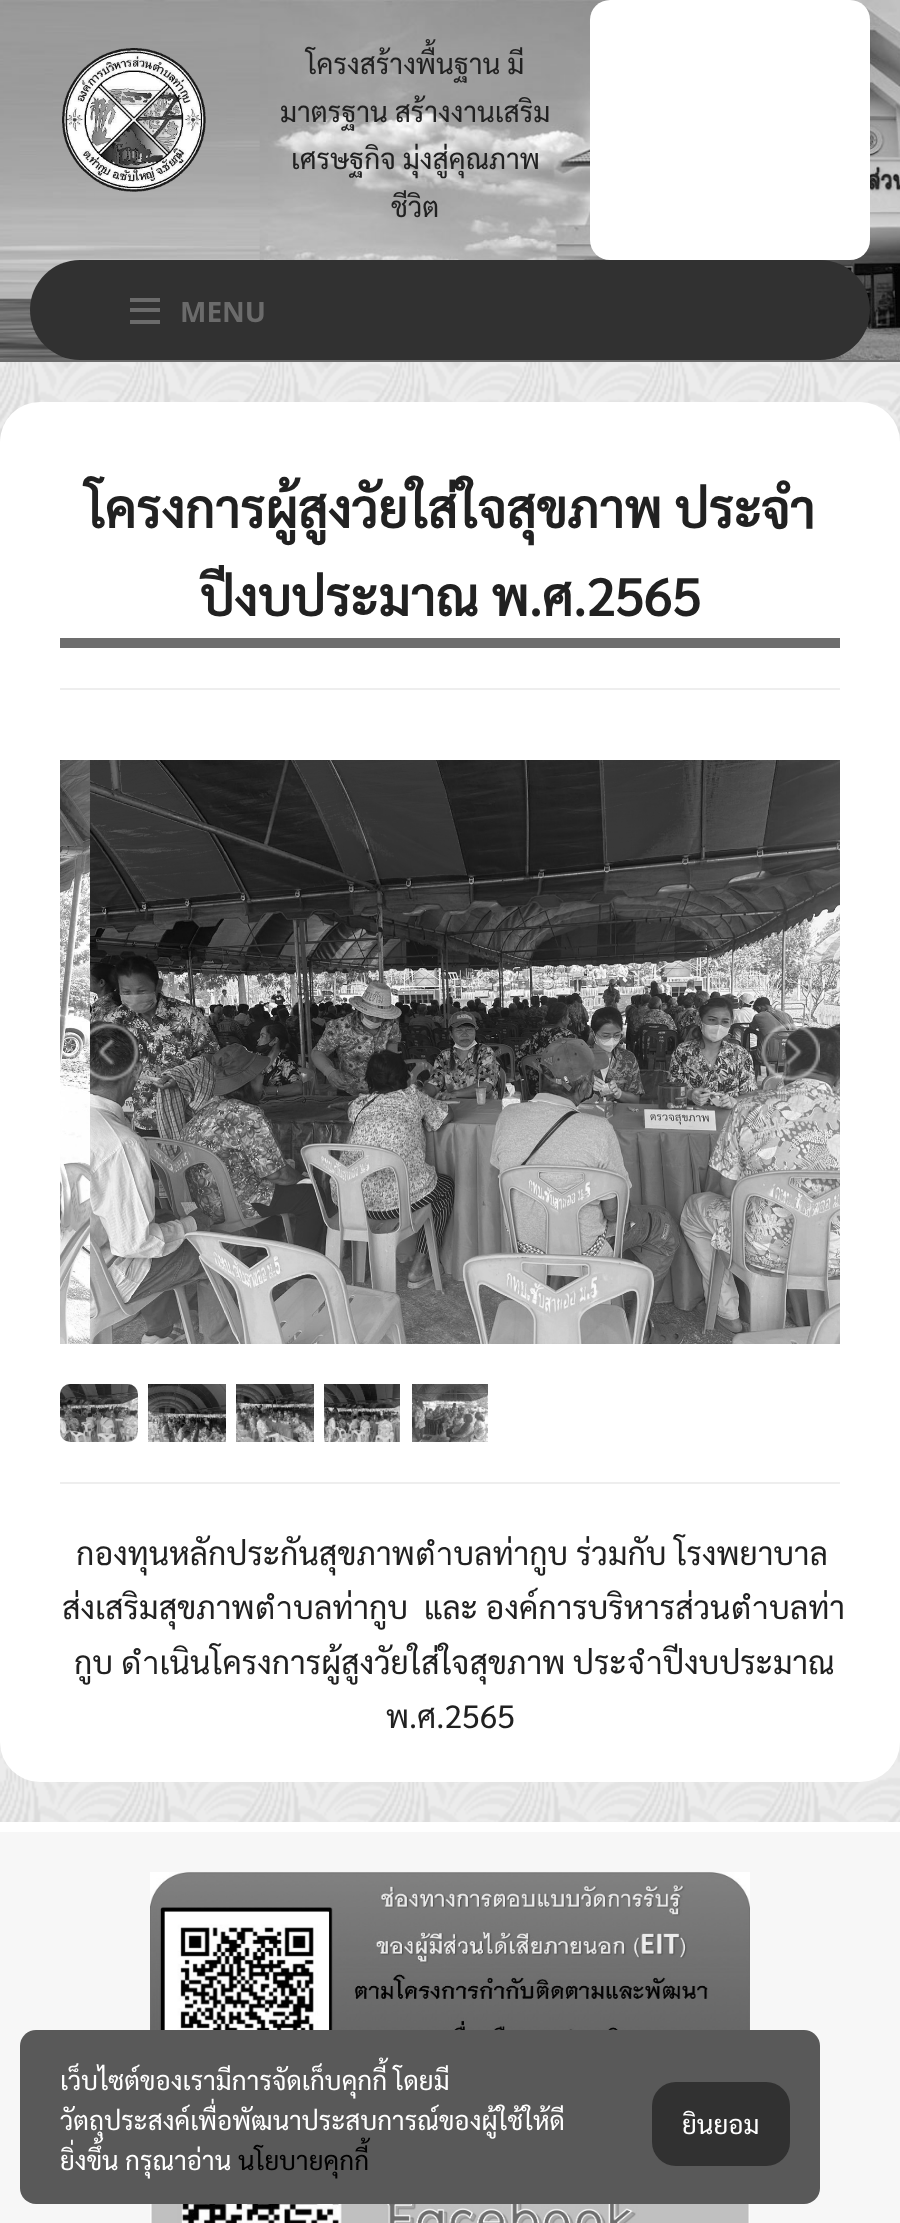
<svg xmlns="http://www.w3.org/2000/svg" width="900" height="2223">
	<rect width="100%" height="100%" fill="#FFFFFF" />
	<image x="0" y="0" width="900" height="360" href="assets/img1.png" />
	<image x="62" y="48" width="144" height="144" href="assets/img2.png" />
	<g font-family="Sarabun" font-size="28" fill="#212121">
		<text x="306" y="74">โครงสร้างพื้นฐาน มี</text>
		<text x="280" y="122">มาตรฐาน สร้างงานเสริม</text>
		<text x="291" y="169">เศรษฐกิจ มุ่งสู่คุณภาพ</text>
		<text x="391" y="217">ชีวิต</text>
	</g>
	<rect x="590" y="0" width="280" height="260" rx="20" fill="#FFFFFF" />
	<rect x="0" y="360" width="900" height="2" fill="#6B6B6B" />
	<rect x="30" y="260" width="840" height="100" rx="50" fill="#313131" />
	<rect x="130" y="298" width="30" height="4" fill="#6B6B6B" />
	<rect x="130" y="308" width="30" height="4" fill="#6B6B6B" />
	<rect x="130" y="320" width="30" height="4" fill="#6B6B6B" />
	<text x="180" y="322" font-family="Open Sans" font-size="28" font-weight="700" fill="#6B6B6B">MENU</text>
	<image x="0" y="362" width="900" height="1460" href="assets/img3.png" />
	<rect x="0" y="402" width="900" height="1380" rx="40" fill="#FFFFFF" />
	<rect x="60" y="638" width="780" height="10" fill="#6D6D6D" />
	<g font-family="Sarabun" font-size="52" font-weight="700" fill="#212121">
		<text x="85" y="528">โครงการผู้สูงวัยใส่ใจสุขภาพ ประจำ</text>
		<text x="200" y="616">ปีงบประมาณ พ.ศ.2565</text>
	</g>
	<rect x="60" y="688" width="780" height="2" fill="#EEEEEE" />
	<image x="60" y="760" width="30" height="584" href="assets/img4.png" />
	<image x="90" y="760" width="750" height="584" href="assets/img5.png" />
	<image x="80" y="1023" width="59" height="58" href="assets/img6.png" />
	<image x="761" y="1023" width="59" height="58" href="assets/img7.png" />
	<image x="60" y="1384" width="78" height="58" href="assets/img8.png" />
	<image x="148" y="1384" width="78" height="58" href="assets/img9.png" />
	<image x="236" y="1384" width="78" height="58" href="assets/img10.png" />
	<image x="324" y="1384" width="76" height="58" href="assets/img11.png" />
	<image x="412" y="1384" width="76" height="58" href="assets/img12.png" />
	<rect x="60" y="1482" width="780" height="2" fill="#EEEEEE" />
	<g font-family="Sarabun" font-size="32" fill="#212121">
		<text x="76" y="1565">กองทุนหลักประกันสุขภาพตำบลท่ากูบ ร่วมกับ โรงพยาบาล</text>
		<text x="62" y="1619" xml:space="preserve">ส่งเสริมสุขภาพตำบลท่ากูบ  และ องค์การบริหารส่วนตำบลท่า</text>
		<text x="74" y="1674">กูบ ดำเนินโครงการผู้สูงวัยใส่ใจสุขภาพ ประจำปีงบประมาณ</text>
		<text x="386" y="1728">พ.ศ.2565</text>
	</g>
	<rect x="0" y="1832" width="900" height="391" fill="#F7F7F7" />
	<image x="150" y="1872" width="600" height="158" href="assets/img13.png" />
	<image x="150" y="2204" width="600" height="19" href="assets/img14.png" />
	<rect x="20" y="2030" width="800" height="174" rx="16" fill="#595959" />
	<g font-family="Sarabun" font-size="26" fill="#FFFFFF">
		<text x="60" y="2090">เว็บไซต์ของเรามีการจัดเก็บคุกกี้ โดยมี</text>
		<text x="60" y="2130">วัตถุประสงค์เพื่อพัฒนาประสบการณ์ของผู้ใช้ให้ดี</text>
		<text x="60" y="2170">ยิ่งขึ้น กรุณาอ่าน</text>
	</g>
	<text x="238" y="2170" font-family="Sarabun" font-size="26" fill="#000000">นโยบายคุกกี้</text>
	<rect x="652" y="2082" width="138" height="84" rx="24" fill="#313131" />
	<text x="682" y="2134" font-family="Sarabun" font-size="26" fill="#FFFFFF">ยินยอม</text>
</svg>
